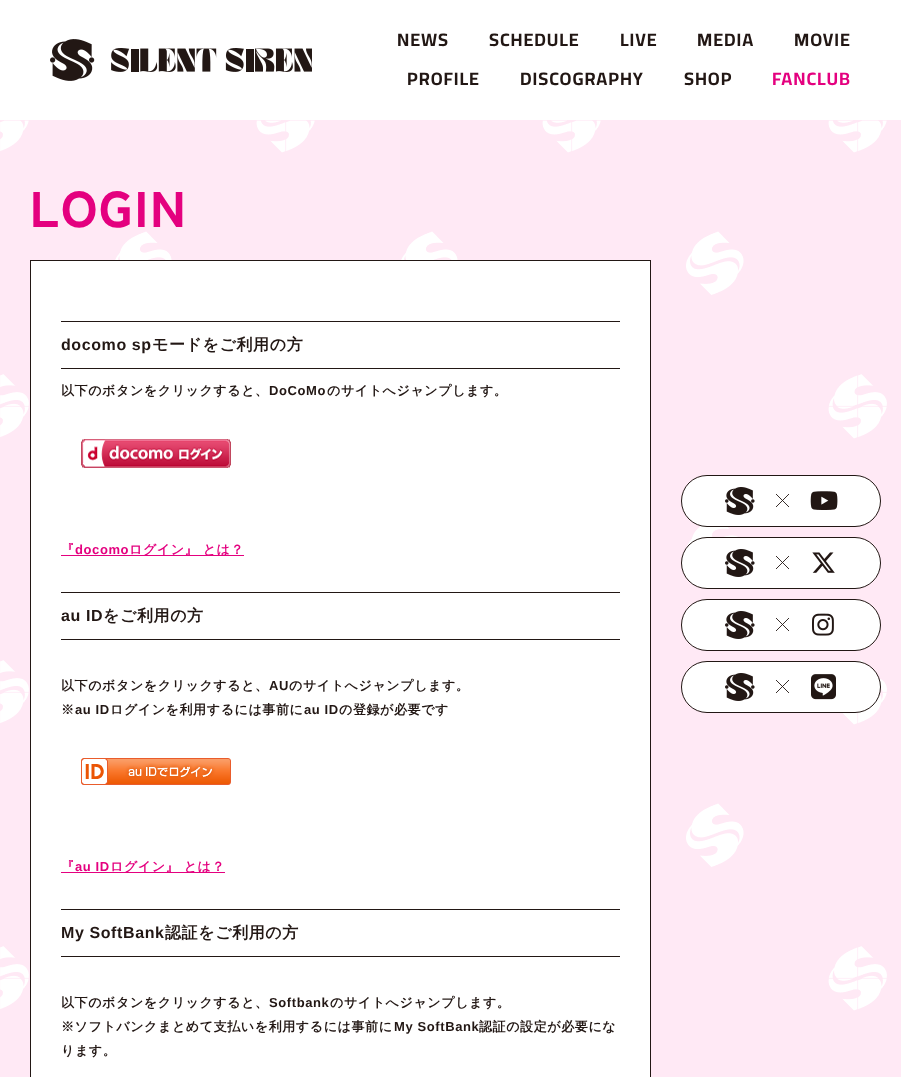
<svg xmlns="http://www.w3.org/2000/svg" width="901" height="1077">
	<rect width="100%" height="100%" fill="#FFFFFF" />
	<image x="50" y="39" width="262" height="42" href="assets/img1.png" />
	<g font-family="Cairo" font-size="18" font-weight="700" letter-spacing="0.9" fill="#221714">
		<text x="397" y="46">NEWS</text>
		<text x="489" y="46">SCHEDULE</text>
		<text x="620" y="46">LIVE</text>
		<text x="697" y="46">MEDIA</text>
		<text x="794" y="46">MOVIE</text>
		<text x="407" y="85">PROFILE</text>
		<text x="520" y="85">DISCOGRAPHY</text>
		<text x="684" y="85">SHOP</text>
	</g>
	<text x="772" y="85" font-family="Cairo" font-size="18" font-weight="700" letter-spacing="0.9" fill="#E4007F">FANCLUB</text>
	<rect x="0" y="120" width="901" height="957" fill="#FFE9F5" />
	<image x="0" y="120" width="887" height="891" href="assets/img2.png" />
	<text x="30" y="227" font-family="Zen Kaku Gothic New" font-size="50" font-weight="900" letter-spacing="2.5" fill="#E4007F">LOGIN</text>
	<rect x="30.5" y="260.5" width="620" height="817" fill="#FFFFFF" stroke="#221714" />
	<rect x="61" y="321" width="559" height="1" fill="#221714" />
	<rect x="61" y="368" width="559" height="1" fill="#221714" />
	<text x="61" y="350" font-family="Liberation Sans" font-size="16" font-weight="700" letter-spacing="0.6" fill="#221714">docomo sp</text>
	<text x="152" y="350" font-family="WenQuanYi Zen Hei" font-size="16" font-weight="700" letter-spacing="0.6" fill="#221714">モードをご利用の方</text>
	<text x="61" y="395" font-family="WenQuanYi Zen Hei" font-size="13" font-weight="700" letter-spacing="0.6" fill="#221714">以下のボタンをクリックすると、</text>
	<text x="269" y="395" font-family="Liberation Sans" font-size="13" font-weight="700" letter-spacing="0.6" fill="#221714">DoCoMo</text>
	<text x="327" y="395" font-family="WenQuanYi Zen Hei" font-size="13" font-weight="700" letter-spacing="0.6" fill="#221714">のサイトへジャンプします。</text>
	<image x="81" y="439" width="150" height="29" href="assets/img3.png" />
	<text x="61" y="554" font-family="WenQuanYi Zen Hei" font-size="13" font-weight="700" letter-spacing="0.6" fill="#E4007F">『</text>
	<text x="75" y="554" font-family="Liberation Sans" font-size="13" font-weight="700" letter-spacing="0.6" fill="#E4007F">docomo</text>
	<rect x="61" y="555" width="183" height="1" fill="#E4007F" />
	<text x="129" y="554" font-family="WenQuanYi Zen Hei" font-size="13" font-weight="700" letter-spacing="0.6" fill="#E4007F">ログイン』 とは？</text>
	<rect x="61" y="592" width="559" height="1" fill="#221714" />
	<rect x="61" y="639" width="559" height="1" fill="#221714" />
	<text x="61" y="621" font-family="Liberation Sans" font-size="16" font-weight="700" letter-spacing="0.6" fill="#221714">au ID</text>
	<text x="103" y="621" font-family="WenQuanYi Zen Hei" font-size="16" font-weight="700" letter-spacing="0.6" fill="#221714">をご利用の方</text>
	<text x="61" y="690" font-family="WenQuanYi Zen Hei" font-size="13" font-weight="700" letter-spacing="0.6" fill="#221714">以下のボタンをクリックすると、</text>
	<text x="269" y="690" font-family="Liberation Sans" font-size="13" font-weight="700" letter-spacing="0.6" fill="#221714">AU</text>
	<g font-family="WenQuanYi Zen Hei" font-size="13" font-weight="700" letter-spacing="0.6" fill="#221714">
		<text x="289" y="690">のサイトへジャンプします。</text>
		<text x="61" y="714">※</text>
	</g>
	<text x="75" y="714" font-family="Liberation Sans" font-size="13" font-weight="700" letter-spacing="0.6" fill="#221714">au ID</text>
	<text x="110" y="714" font-family="WenQuanYi Zen Hei" font-size="13" font-weight="700" letter-spacing="0.6" fill="#221714">ログインを利用するには事前に</text>
	<text x="304" y="714" font-family="Liberation Sans" font-size="13" font-weight="700" letter-spacing="0.6" fill="#221714">au ID</text>
	<text x="339" y="714" font-family="WenQuanYi Zen Hei" font-size="13" font-weight="700" letter-spacing="0.6" fill="#221714">の登録が必要です</text>
	<image x="81" y="758" width="150" height="27" href="assets/img4.png" />
	<text x="61" y="871" font-family="WenQuanYi Zen Hei" font-size="13" font-weight="700" letter-spacing="0.6" fill="#E4007F">『</text>
	<text x="75" y="871" font-family="Liberation Sans" font-size="13" font-weight="700" letter-spacing="0.6" fill="#E4007F">au ID</text>
	<rect x="61" y="872" width="164" height="1" fill="#E4007F" />
	<text x="110" y="871" font-family="WenQuanYi Zen Hei" font-size="13" font-weight="700" letter-spacing="0.6" fill="#E4007F">ログイン』 とは？</text>
	<rect x="61" y="909" width="559" height="1" fill="#221714" />
	<rect x="61" y="956" width="559" height="1" fill="#221714" />
	<text x="61" y="938" font-family="Liberation Sans" font-size="16" font-weight="700" letter-spacing="0.6" fill="#221714">My SoftBank</text>
	<text x="165" y="938" font-family="WenQuanYi Zen Hei" font-size="16" font-weight="700" letter-spacing="0.6" fill="#221714">認証をご利用の方</text>
	<text x="61" y="1007" font-family="WenQuanYi Zen Hei" font-size="13" font-weight="700" letter-spacing="0.6" fill="#221714">以下のボタンをクリックすると、</text>
	<text x="269" y="1007" font-family="Liberation Sans" font-size="13" font-weight="700" letter-spacing="0.6" fill="#221714">Softbank</text>
	<g font-family="WenQuanYi Zen Hei" font-size="13" font-weight="700" letter-spacing="0.6" fill="#221714">
		<text x="330" y="1007">のサイトへジャンプします。</text>
		<text x="61" y="1031">※ソフトバンクまとめて支払いを利用するには事前に</text>
	</g>
	<text x="394" y="1031" font-family="Liberation Sans" font-size="13" font-weight="700" letter-spacing="0.6" fill="#221714">My SoftBank</text>
	<g font-family="WenQuanYi Zen Hei" font-size="13" font-weight="700" letter-spacing="0.6" fill="#221714">
		<text x="479" y="1031">認証の設定が必要にな</text>
		<text x="61" y="1055">ります。</text>
	</g>
	<rect x="681.5" y="475.5" width="199" height="51" rx="25.5" fill="#FFFFFF" stroke="#221714" />
	<image x="725" y="487" width="30" height="28" href="assets/img5.png" />
	<path d="M789 494L776 507M789 507L776 494" fill="none" stroke="#221714" stroke-width="0.9" />
	<image x="810" y="491" width="28" height="19" href="assets/img6.png" />
	<rect x="681.5" y="537.5" width="199" height="51" rx="25.5" fill="#FFFFFF" stroke="#221714" />
	<image x="725" y="549" width="30" height="28" href="assets/img5.png" />
	<path d="M789 556L776 569M789 569L776 556" fill="none" stroke="#221714" stroke-width="0.9" />
	<image x="812" y="552" width="23" height="21" href="assets/img7.png" />
	<rect x="681.5" y="599.5" width="199" height="51" rx="25.5" fill="#FFFFFF" stroke="#221714" />
	<image x="725" y="611" width="30" height="28" href="assets/img5.png" />
	<path d="M789 618L776 631M789 631L776 618" fill="none" stroke="#221714" stroke-width="0.9" />
	<image x="812" y="613" width="22" height="23" href="assets/img8.png" />
	<rect x="681.5" y="661.5" width="199" height="51" rx="25.5" fill="#FFFFFF" stroke="#221714" />
	<image x="725" y="673" width="30" height="28" href="assets/img5.png" />
	<path d="M789 680L776 693M789 693L776 680" fill="none" stroke="#221714" stroke-width="0.9" />
	<image x="811" y="674" width="25" height="26" href="assets/img9.png" />
</svg>
